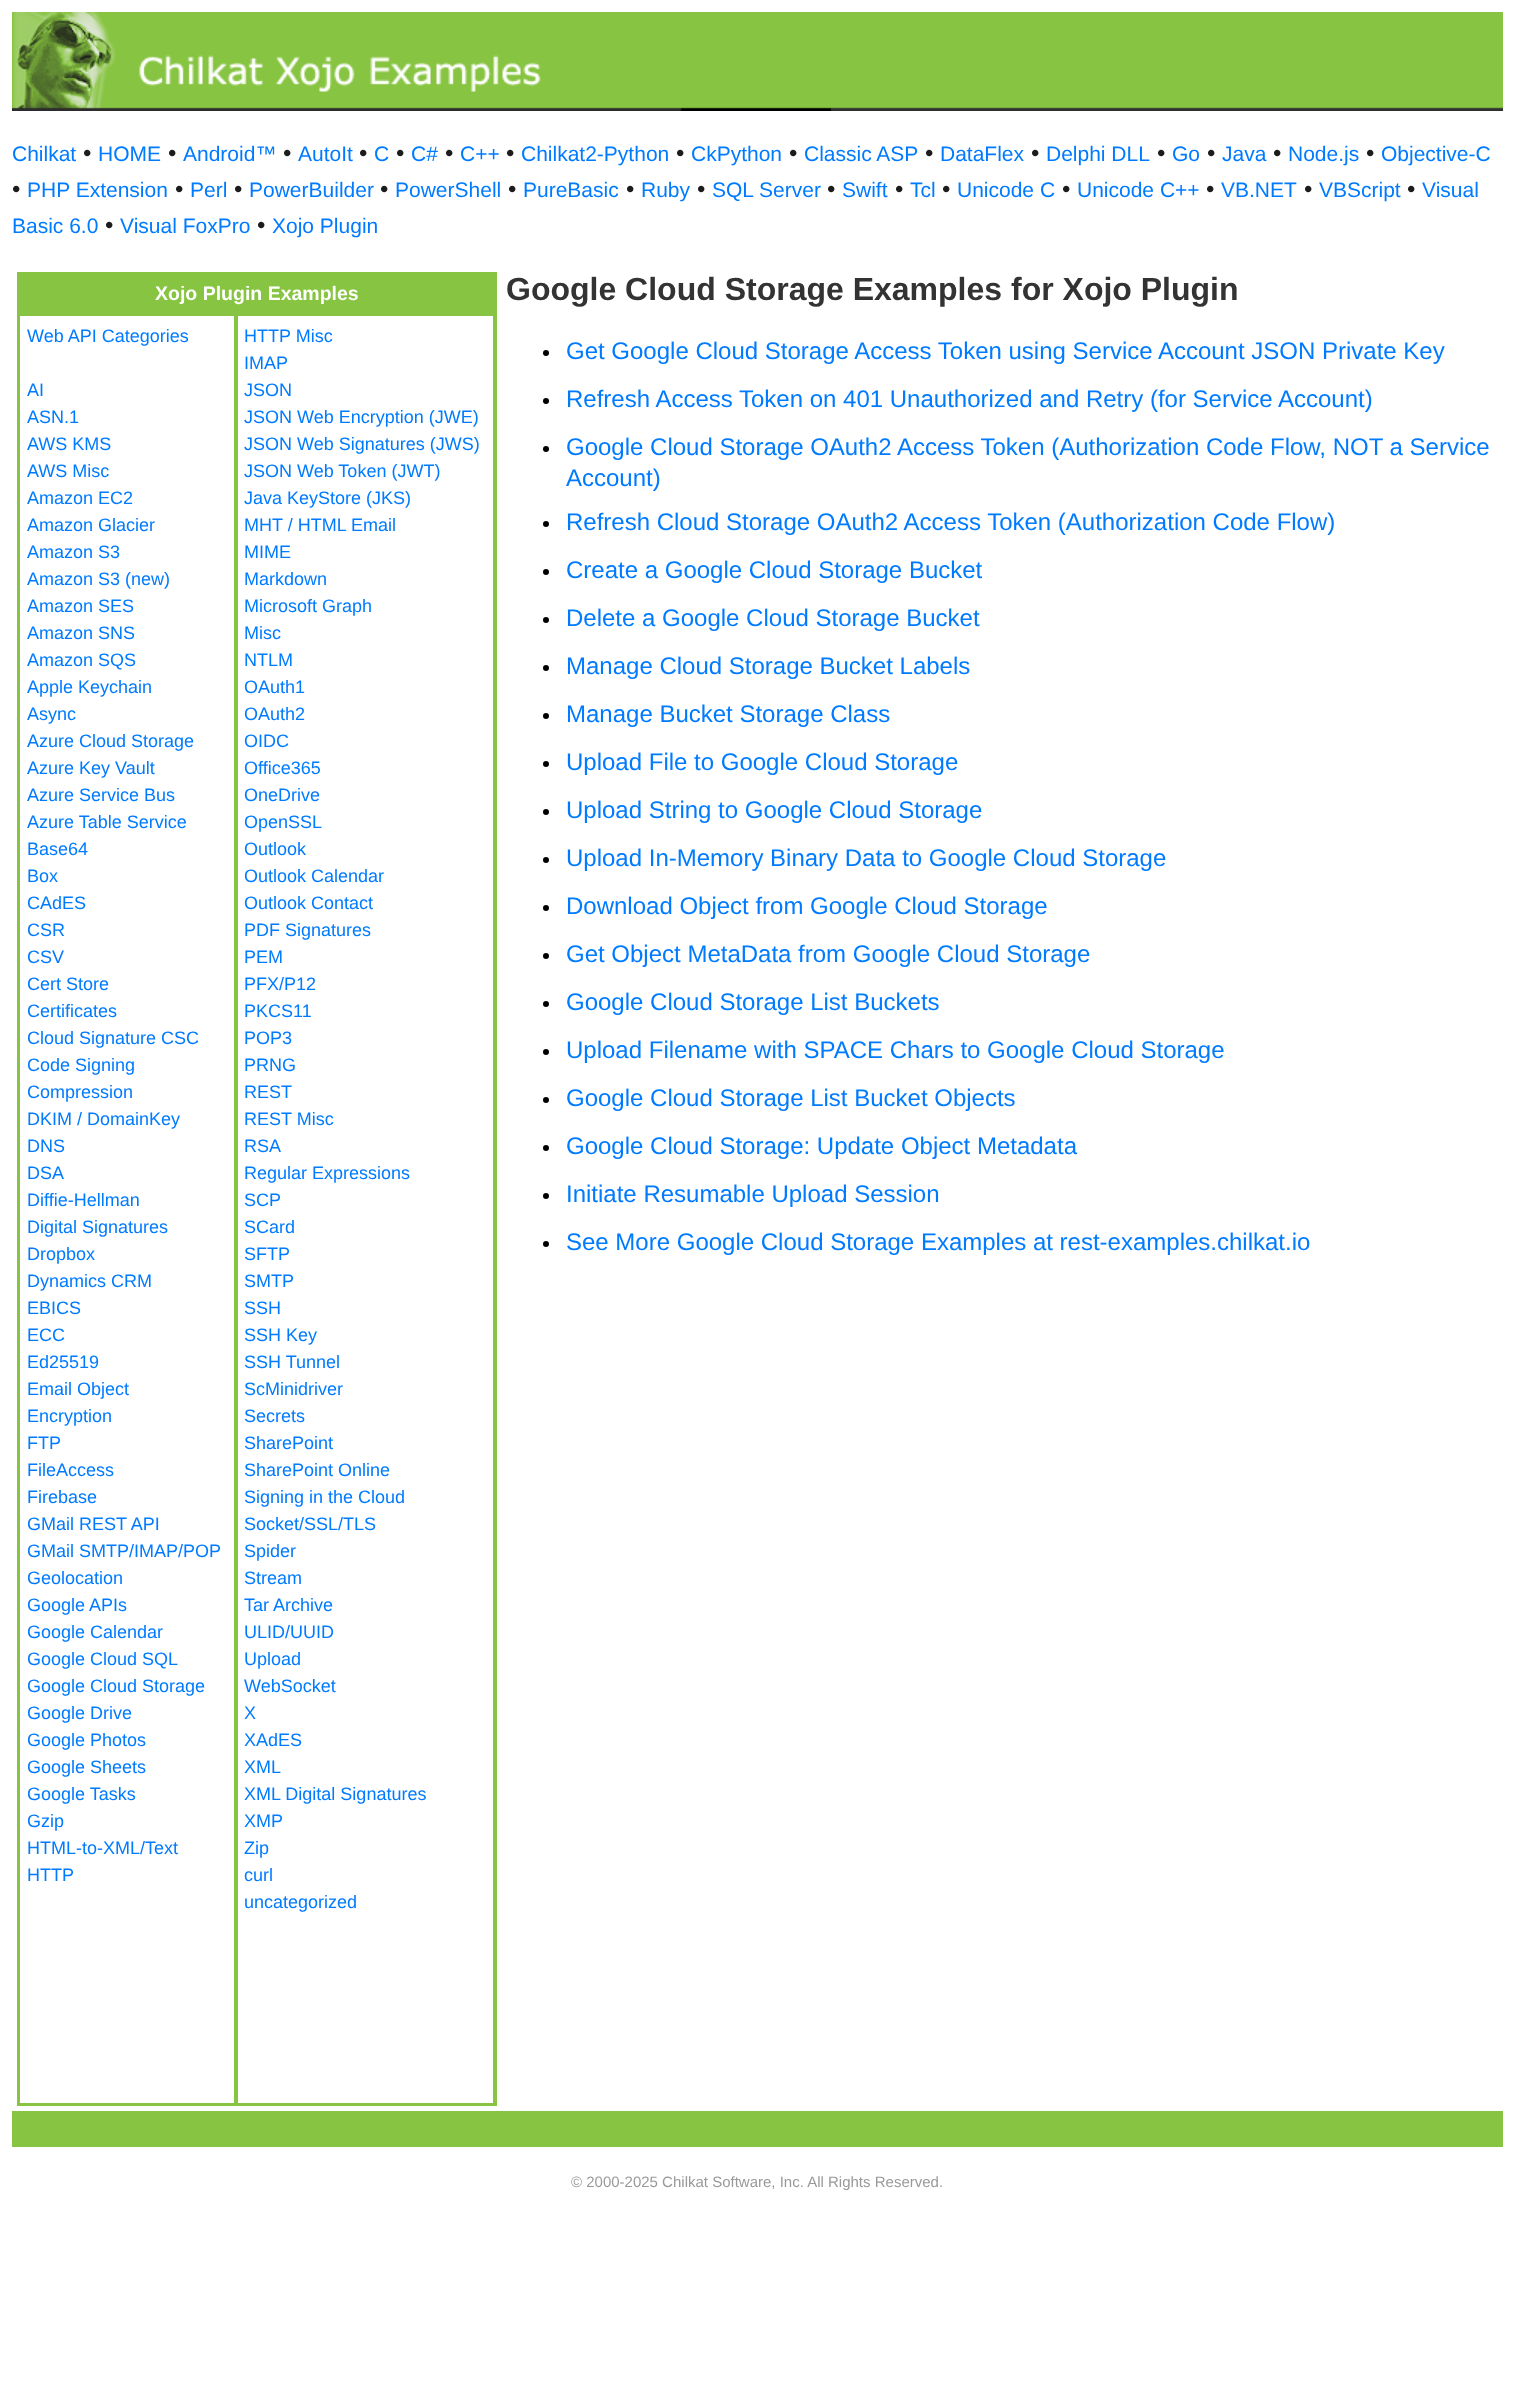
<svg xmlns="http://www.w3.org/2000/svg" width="1515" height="2387">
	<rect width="100%" height="100%" fill="#FFFFFF" />
	<image x="831" y="12" width="672" height="99" href="assets/img1.png" />
	<image x="12" y="12" width="819" height="99" href="assets/img2.png" />
	<text x="12" y="161" font-family="Liberation Sans" font-size="21" fill="#007BFF">Chilkat</text>
	<text x="83" y="161" font-family="Liberation Sans" font-size="24" fill="#1C1C1C">•</text>
	<text x="98" y="161" font-family="Liberation Sans" font-size="21" fill="#007BFF">HOME</text>
	<text x="168" y="161" font-family="Liberation Sans" font-size="24" fill="#1C1C1C">•</text>
	<text x="183" y="161" font-family="Liberation Sans" font-size="21" fill="#007BFF">Android™</text>
	<text x="283" y="161" font-family="Liberation Sans" font-size="24" fill="#1C1C1C">•</text>
	<text x="298" y="161" font-family="Liberation Sans" font-size="21" fill="#007BFF">AutoIt</text>
	<text x="359" y="161" font-family="Liberation Sans" font-size="24" fill="#1C1C1C">•</text>
	<text x="374" y="161" font-family="Liberation Sans" font-size="21" fill="#007BFF">C</text>
	<text x="396" y="161" font-family="Liberation Sans" font-size="24" fill="#1C1C1C">•</text>
	<text x="411" y="161" font-family="Liberation Sans" font-size="21" fill="#007BFF">C#</text>
	<text x="445" y="161" font-family="Liberation Sans" font-size="24" fill="#1C1C1C">•</text>
	<text x="460" y="161" font-family="Liberation Sans" font-size="21" fill="#007BFF">C++</text>
	<text x="506" y="161" font-family="Liberation Sans" font-size="24" fill="#1C1C1C">•</text>
	<text x="521" y="161" font-family="Liberation Sans" font-size="21" fill="#007BFF">Chilkat2-Python</text>
	<text x="676" y="161" font-family="Liberation Sans" font-size="24" fill="#1C1C1C">•</text>
	<text x="691" y="161" font-family="Liberation Sans" font-size="21" fill="#007BFF">CkPython</text>
	<text x="789" y="161" font-family="Liberation Sans" font-size="24" fill="#1C1C1C">•</text>
	<text x="804" y="161" font-family="Liberation Sans" font-size="21" fill="#007BFF">Classic ASP</text>
	<text x="925" y="161" font-family="Liberation Sans" font-size="24" fill="#1C1C1C">•</text>
	<text x="940" y="161" font-family="Liberation Sans" font-size="21" fill="#007BFF">DataFlex</text>
	<text x="1031" y="161" font-family="Liberation Sans" font-size="24" fill="#1C1C1C">•</text>
	<text x="1046" y="161" font-family="Liberation Sans" font-size="21" fill="#007BFF">Delphi DLL</text>
	<text x="1157" y="161" font-family="Liberation Sans" font-size="24" fill="#1C1C1C">•</text>
	<text x="1172" y="161" font-family="Liberation Sans" font-size="21" fill="#007BFF">Go</text>
	<text x="1207" y="161" font-family="Liberation Sans" font-size="24" fill="#1C1C1C">•</text>
	<text x="1222" y="161" font-family="Liberation Sans" font-size="21" fill="#007BFF">Java</text>
	<text x="1273" y="161" font-family="Liberation Sans" font-size="24" fill="#1C1C1C">•</text>
	<text x="1288" y="161" font-family="Liberation Sans" font-size="21" fill="#007BFF">Node.js</text>
	<text x="1366" y="161" font-family="Liberation Sans" font-size="24" fill="#1C1C1C">•</text>
	<text x="1381" y="161" font-family="Liberation Sans" font-size="21" fill="#007BFF">Objective-C</text>
	<text x="12" y="197" font-family="Liberation Sans" font-size="24" fill="#1C1C1C">•</text>
	<text x="27" y="197" font-family="Liberation Sans" font-size="21" fill="#007BFF">PHP Extension</text>
	<text x="175" y="197" font-family="Liberation Sans" font-size="24" fill="#1C1C1C">•</text>
	<text x="190" y="197" font-family="Liberation Sans" font-size="21" fill="#007BFF">Perl</text>
	<text x="234" y="197" font-family="Liberation Sans" font-size="24" fill="#1C1C1C">•</text>
	<text x="249" y="197" font-family="Liberation Sans" font-size="21" fill="#007BFF">PowerBuilder</text>
	<text x="380" y="197" font-family="Liberation Sans" font-size="24" fill="#1C1C1C">•</text>
	<text x="395" y="197" font-family="Liberation Sans" font-size="21" fill="#007BFF">PowerShell</text>
	<text x="508" y="197" font-family="Liberation Sans" font-size="24" fill="#1C1C1C">•</text>
	<text x="523" y="197" font-family="Liberation Sans" font-size="21" fill="#007BFF">PureBasic</text>
	<text x="626" y="197" font-family="Liberation Sans" font-size="24" fill="#1C1C1C">•</text>
	<text x="641" y="197" font-family="Liberation Sans" font-size="21" fill="#007BFF">Ruby</text>
	<text x="697" y="197" font-family="Liberation Sans" font-size="24" fill="#1C1C1C">•</text>
	<text x="712" y="197" font-family="Liberation Sans" font-size="21" fill="#007BFF">SQL Server</text>
	<text x="827" y="197" font-family="Liberation Sans" font-size="24" fill="#1C1C1C">•</text>
	<text x="842" y="197" font-family="Liberation Sans" font-size="21" fill="#007BFF">Swift</text>
	<text x="895" y="197" font-family="Liberation Sans" font-size="24" fill="#1C1C1C">•</text>
	<text x="910" y="197" font-family="Liberation Sans" font-size="21" fill="#007BFF">Tcl</text>
	<text x="942" y="197" font-family="Liberation Sans" font-size="24" fill="#1C1C1C">•</text>
	<text x="957" y="197" font-family="Liberation Sans" font-size="21" fill="#007BFF">Unicode C</text>
	<text x="1062" y="197" font-family="Liberation Sans" font-size="24" fill="#1C1C1C">•</text>
	<text x="1077" y="197" font-family="Liberation Sans" font-size="21" fill="#007BFF">Unicode C++</text>
	<text x="1206" y="197" font-family="Liberation Sans" font-size="24" fill="#1C1C1C">•</text>
	<text x="1221" y="197" font-family="Liberation Sans" font-size="21" fill="#007BFF">VB.NET</text>
	<text x="1304" y="197" font-family="Liberation Sans" font-size="24" fill="#1C1C1C">•</text>
	<text x="1319" y="197" font-family="Liberation Sans" font-size="21" fill="#007BFF">VBScript</text>
	<text x="1407" y="197" font-family="Liberation Sans" font-size="24" fill="#1C1C1C">•</text>
	<g font-family="Liberation Sans" font-size="21" fill="#007BFF">
		<text x="1422" y="197">Visual</text>
		<text x="12" y="233">Basic 6.0</text>
	</g>
	<text x="105" y="233" font-family="Liberation Sans" font-size="24" fill="#1C1C1C">•</text>
	<text x="120" y="233" font-family="Liberation Sans" font-size="21" fill="#007BFF">Visual FoxPro</text>
	<text x="257" y="233" font-family="Liberation Sans" font-size="24" fill="#1C1C1C">•</text>
	<text x="272" y="233" font-family="Liberation Sans" font-size="21" fill="#007BFF">Xojo Plugin</text>
	<rect x="18" y="273" width="478" height="1832" fill="none" stroke="#87C441" stroke-width="2" />
	<rect x="19" y="274" width="476" height="40" fill="#87C441" />
	<text x="155" y="300" font-family="Liberation Sans" font-size="19.5" font-weight="700" fill="#FFFFFF">Xojo Plugin Examples</text>
	<rect x="19" y="315" width="216" height="1789" fill="none" stroke="#87C441" stroke-width="2" />
	<g font-family="Liberation Sans" font-size="18" fill="#007BFF">
		<text x="27" y="342">Web API Categories</text>
		<text x="27" y="396">AI</text>
		<text x="27" y="423">ASN.1</text>
		<text x="27" y="450">AWS KMS</text>
		<text x="27" y="477">AWS Misc</text>
		<text x="27" y="504">Amazon EC2</text>
		<text x="27" y="531">Amazon Glacier</text>
		<text x="27" y="558">Amazon S3</text>
		<text x="27" y="585">Amazon S3 (new)</text>
		<text x="27" y="612">Amazon SES</text>
		<text x="27" y="639">Amazon SNS</text>
		<text x="27" y="666">Amazon SQS</text>
		<text x="27" y="693">Apple Keychain</text>
		<text x="27" y="720">Async</text>
		<text x="27" y="747">Azure Cloud Storage</text>
		<text x="27" y="774">Azure Key Vault</text>
		<text x="27" y="801">Azure Service Bus</text>
		<text x="27" y="828">Azure Table Service</text>
		<text x="27" y="855">Base64</text>
		<text x="27" y="882">Box</text>
		<text x="27" y="909">CAdES</text>
		<text x="27" y="936">CSR</text>
		<text x="27" y="963">CSV</text>
		<text x="27" y="990">Cert Store</text>
		<text x="27" y="1017">Certificates</text>
		<text x="27" y="1044">Cloud Signature CSC</text>
		<text x="27" y="1071">Code Signing</text>
		<text x="27" y="1098">Compression</text>
		<text x="27" y="1125">DKIM / DomainKey</text>
		<text x="27" y="1152">DNS</text>
		<text x="27" y="1179">DSA</text>
		<text x="27" y="1206">Diffie-Hellman</text>
		<text x="27" y="1233">Digital Signatures</text>
		<text x="27" y="1260">Dropbox</text>
		<text x="27" y="1287">Dynamics CRM</text>
		<text x="27" y="1314">EBICS</text>
		<text x="27" y="1341">ECC</text>
		<text x="27" y="1368">Ed25519</text>
		<text x="27" y="1395">Email Object</text>
		<text x="27" y="1422">Encryption</text>
		<text x="27" y="1449">FTP</text>
		<text x="27" y="1476">FileAccess</text>
		<text x="27" y="1503">Firebase</text>
		<text x="27" y="1530">GMail REST API</text>
		<text x="27" y="1557">GMail SMTP/IMAP/POP</text>
		<text x="27" y="1584">Geolocation</text>
		<text x="27" y="1611">Google APIs</text>
		<text x="27" y="1638">Google Calendar</text>
		<text x="27" y="1665">Google Cloud SQL</text>
		<text x="27" y="1692">Google Cloud Storage</text>
		<text x="27" y="1719">Google Drive</text>
		<text x="27" y="1746">Google Photos</text>
		<text x="27" y="1773">Google Sheets</text>
		<text x="27" y="1800">Google Tasks</text>
		<text x="27" y="1827">Gzip</text>
		<text x="27" y="1854">HTML-to-XML/Text</text>
		<text x="27" y="1881">HTTP</text>
	</g>
	<rect x="237" y="315" width="257" height="1789" fill="none" stroke="#87C441" stroke-width="2" />
	<g font-family="Liberation Sans" font-size="18" fill="#007BFF">
		<text x="244" y="342">HTTP Misc</text>
		<text x="244" y="369">IMAP</text>
		<text x="244" y="396">JSON</text>
		<text x="244" y="423">JSON Web Encryption (JWE)</text>
		<text x="244" y="450">JSON Web Signatures (JWS)</text>
		<text x="244" y="477">JSON Web Token (JWT)</text>
		<text x="244" y="504">Java KeyStore (JKS)</text>
		<text x="244" y="531">MHT / HTML Email</text>
		<text x="244" y="558">MIME</text>
		<text x="244" y="585">Markdown</text>
		<text x="244" y="612">Microsoft Graph</text>
		<text x="244" y="639">Misc</text>
		<text x="244" y="666">NTLM</text>
		<text x="244" y="693">OAuth1</text>
		<text x="244" y="720">OAuth2</text>
		<text x="244" y="747">OIDC</text>
		<text x="244" y="774">Office365</text>
		<text x="244" y="801">OneDrive</text>
		<text x="244" y="828">OpenSSL</text>
		<text x="244" y="855">Outlook</text>
		<text x="244" y="882">Outlook Calendar</text>
		<text x="244" y="909">Outlook Contact</text>
		<text x="244" y="936">PDF Signatures</text>
		<text x="244" y="963">PEM</text>
		<text x="244" y="990">PFX/P12</text>
		<text x="244" y="1017">PKCS11</text>
		<text x="244" y="1044">POP3</text>
		<text x="244" y="1071">PRNG</text>
		<text x="244" y="1098">REST</text>
		<text x="244" y="1125">REST Misc</text>
		<text x="244" y="1152">RSA</text>
		<text x="244" y="1179">Regular Expressions</text>
		<text x="244" y="1206">SCP</text>
		<text x="244" y="1233">SCard</text>
		<text x="244" y="1260">SFTP</text>
		<text x="244" y="1287">SMTP</text>
		<text x="244" y="1314">SSH</text>
		<text x="244" y="1341">SSH Key</text>
		<text x="244" y="1368">SSH Tunnel</text>
		<text x="244" y="1395">ScMinidriver</text>
		<text x="244" y="1422">Secrets</text>
		<text x="244" y="1449">SharePoint</text>
		<text x="244" y="1476">SharePoint Online</text>
		<text x="244" y="1503">Signing in the Cloud</text>
		<text x="244" y="1530">Socket/SSL/TLS</text>
		<text x="244" y="1557">Spider</text>
		<text x="244" y="1584">Stream</text>
		<text x="244" y="1611">Tar Archive</text>
		<text x="244" y="1638">ULID/UUID</text>
		<text x="244" y="1665">Upload</text>
		<text x="244" y="1692">WebSocket</text>
		<text x="244" y="1719">X</text>
		<text x="244" y="1746">XAdES</text>
		<text x="244" y="1773">XML</text>
		<text x="244" y="1800">XML Digital Signatures</text>
		<text x="244" y="1827">XMP</text>
		<text x="244" y="1854">Zip</text>
		<text x="244" y="1881">curl</text>
		<text x="244" y="1908">uncategorized</text>
	</g>
	<text x="506" y="300" font-family="Liberation Sans" font-size="32" font-weight="700" fill="#333333">Google Cloud Storage Examples for Xojo Plugin</text>
	<circle cx="546" cy="353" r="3" fill="#000000" />
	<text x="566" y="359" font-family="Liberation Sans" font-size="24" fill="#007BFF">Get Google Cloud Storage Access Token using Service Account JSON Private Key</text>
	<circle cx="546" cy="401" r="3" fill="#000000" />
	<text x="566" y="407" font-family="Liberation Sans" font-size="24" fill="#007BFF">Refresh Access Token on 401 Unauthorized and Retry (for Service Account)</text>
	<circle cx="546" cy="449" r="3" fill="#000000" />
	<g font-family="Liberation Sans" font-size="24" fill="#007BFF">
		<text x="566" y="455">Google Cloud Storage OAuth2 Access Token (Authorization Code Flow, NOT a Service</text>
		<text x="566" y="486">Account)</text>
	</g>
	<circle cx="546" cy="524" r="3" fill="#000000" />
	<text x="566" y="530" font-family="Liberation Sans" font-size="24" fill="#007BFF">Refresh Cloud Storage OAuth2 Access Token (Authorization Code Flow)</text>
	<circle cx="546" cy="572" r="3" fill="#000000" />
	<text x="566" y="578" font-family="Liberation Sans" font-size="24" fill="#007BFF">Create a Google Cloud Storage Bucket</text>
	<circle cx="546" cy="620" r="3" fill="#000000" />
	<text x="566" y="626" font-family="Liberation Sans" font-size="24" fill="#007BFF">Delete a Google Cloud Storage Bucket</text>
	<circle cx="546" cy="668" r="3" fill="#000000" />
	<text x="566" y="674" font-family="Liberation Sans" font-size="24" fill="#007BFF">Manage Cloud Storage Bucket Labels</text>
	<circle cx="546" cy="716" r="3" fill="#000000" />
	<text x="566" y="722" font-family="Liberation Sans" font-size="24" fill="#007BFF">Manage Bucket Storage Class</text>
	<circle cx="546" cy="764" r="3" fill="#000000" />
	<text x="566" y="770" font-family="Liberation Sans" font-size="24" fill="#007BFF">Upload File to Google Cloud Storage</text>
	<circle cx="546" cy="812" r="3" fill="#000000" />
	<text x="566" y="818" font-family="Liberation Sans" font-size="24" fill="#007BFF">Upload String to Google Cloud Storage</text>
	<circle cx="546" cy="860" r="3" fill="#000000" />
	<text x="566" y="866" font-family="Liberation Sans" font-size="24" fill="#007BFF">Upload In-Memory Binary Data to Google Cloud Storage</text>
	<circle cx="546" cy="908" r="3" fill="#000000" />
	<text x="566" y="914" font-family="Liberation Sans" font-size="24" fill="#007BFF">Download Object from Google Cloud Storage</text>
	<circle cx="546" cy="956" r="3" fill="#000000" />
	<text x="566" y="962" font-family="Liberation Sans" font-size="24" fill="#007BFF">Get Object MetaData from Google Cloud Storage</text>
	<circle cx="546" cy="1004" r="3" fill="#000000" />
	<text x="566" y="1010" font-family="Liberation Sans" font-size="24" fill="#007BFF">Google Cloud Storage List Buckets</text>
	<circle cx="546" cy="1052" r="3" fill="#000000" />
	<text x="566" y="1058" font-family="Liberation Sans" font-size="24" fill="#007BFF">Upload Filename with SPACE Chars to Google Cloud Storage</text>
	<circle cx="546" cy="1100" r="3" fill="#000000" />
	<text x="566" y="1106" font-family="Liberation Sans" font-size="24" fill="#007BFF">Google Cloud Storage List Bucket Objects</text>
	<circle cx="546" cy="1148" r="3" fill="#000000" />
	<text x="566" y="1154" font-family="Liberation Sans" font-size="24" fill="#007BFF">Google Cloud Storage: Update Object Metadata</text>
	<circle cx="546" cy="1196" r="3" fill="#000000" />
	<text x="566" y="1202" font-family="Liberation Sans" font-size="24" fill="#007BFF">Initiate Resumable Upload Session</text>
	<circle cx="546" cy="1244" r="3" fill="#000000" />
	<text x="566" y="1250" font-family="Liberation Sans" font-size="24" fill="#007BFF">See More Google Cloud Storage Examples at rest-examples.chilkat.io</text>
	<rect x="12" y="2111" width="1491" height="36" fill="#87C441" />
	<text x="571" y="2187" font-family="Liberation Sans" font-size="15" fill="#999999">© 2000-2025 Chilkat Software, Inc. All Rights Reserved.</text>
</svg>
